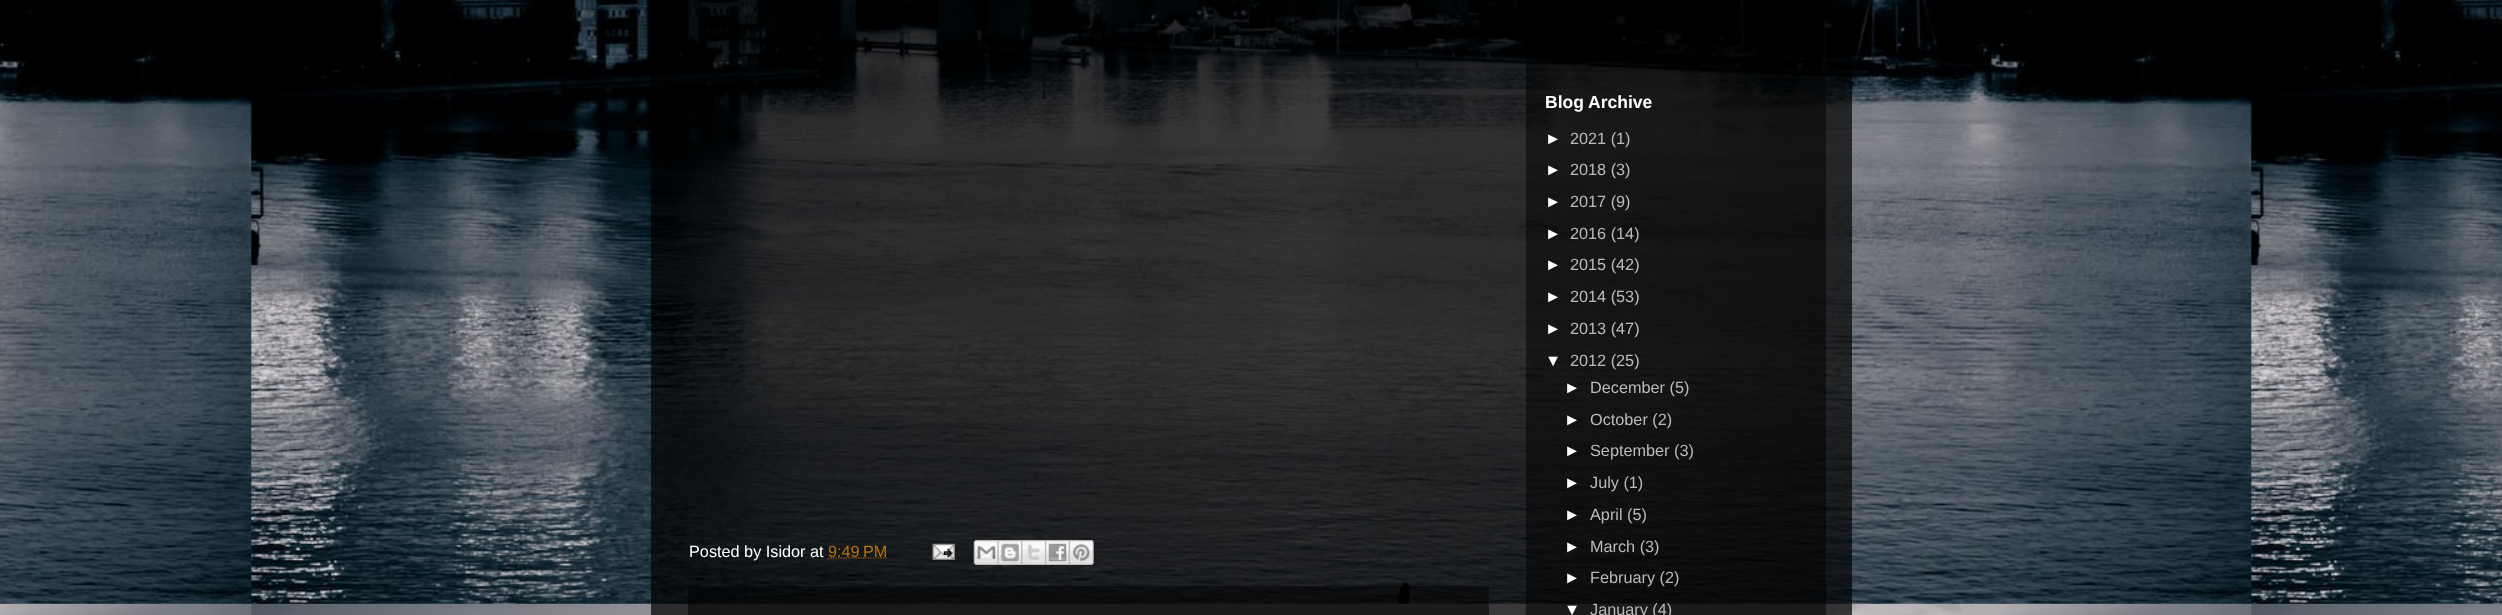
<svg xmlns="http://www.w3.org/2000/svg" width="2502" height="615">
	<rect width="100%" height="100%" fill="#FFFFFF" />
	<image x="0" y="0" width="2502" height="615" href="assets/img1.png" />
	<rect x="651" y="0" width="1201" height="615" fill="#000000" fill-opacity="0.7" />
	<rect x="1526" y="0" width="300" height="615" fill="#000000" fill-opacity="0.5" />
	<text x="689" y="557" font-family="Liberation Sans" font-size="16.25" fill="#FFFFFF">Posted by Isidor at</text>
	<path d="M828 558H887" fill="none" stroke="#B87209" stroke-width="1.2" stroke-dasharray="1.25 1.25" />
	<text x="828" y="557" font-family="Liberation Sans" font-size="16.25" fill="#B87209">9:49 PM</text>
	<image x="932" y="543" width="23" height="17" href="assets/img2.png" />
	<image x="973" y="540" width="25" height="25" href="assets/img3.png" />
	<image x="997" y="540" width="25" height="25" href="assets/img4.png" />
	<image x="1021" y="540" width="24" height="25" href="assets/img5.png" />
	<image x="1045" y="540" width="24" height="25" href="assets/img6.png" />
	<image x="1068" y="540" width="26" height="25" href="assets/img7.png" />
	<rect x="688" y="586" width="801" height="29" fill="#000000" fill-opacity="0.5" />
	<text x="1545" y="108" font-family="Liberation Sans" font-size="17.5" font-weight="700" fill="#FFFFFF">Blog Archive</text>
	<text x="1545" y="144" font-family="Liberation Sans" font-size="16.25" fill="#FFFFFF">►</text>
	<text x="1570" y="144" font-family="Liberation Sans" font-size="16.25" fill="#BBBBBB">2021 (1)</text>
	<text x="1545" y="175" font-family="Liberation Sans" font-size="16.25" fill="#FFFFFF">►</text>
	<text x="1570" y="175" font-family="Liberation Sans" font-size="16.25" fill="#BBBBBB">2018 (3)</text>
	<text x="1545" y="207" font-family="Liberation Sans" font-size="16.25" fill="#FFFFFF">►</text>
	<text x="1570" y="207" font-family="Liberation Sans" font-size="16.25" fill="#BBBBBB">2017 (9)</text>
	<text x="1545" y="239" font-family="Liberation Sans" font-size="16.25" fill="#FFFFFF">►</text>
	<text x="1570" y="239" font-family="Liberation Sans" font-size="16.25" fill="#BBBBBB">2016 (14)</text>
	<text x="1545" y="270" font-family="Liberation Sans" font-size="16.25" fill="#FFFFFF">►</text>
	<text x="1570" y="270" font-family="Liberation Sans" font-size="16.25" fill="#BBBBBB">2015 (42)</text>
	<text x="1545" y="302" font-family="Liberation Sans" font-size="16.25" fill="#FFFFFF">►</text>
	<text x="1570" y="302" font-family="Liberation Sans" font-size="16.25" fill="#BBBBBB">2014 (53)</text>
	<text x="1545" y="334" font-family="Liberation Sans" font-size="16.25" fill="#FFFFFF">►</text>
	<text x="1570" y="334" font-family="Liberation Sans" font-size="16.25" fill="#BBBBBB">2013 (47)</text>
	<text x="1545" y="366" font-family="Liberation Sans" font-size="16.25" fill="#FFFFFF">▼</text>
	<text x="1570" y="366" font-family="Liberation Sans" font-size="16.25" fill="#BBBBBB">2012 (25)</text>
	<text x="1564" y="393" font-family="Liberation Sans" font-size="16.25" fill="#FFFFFF">►</text>
	<text x="1590" y="393" font-family="Liberation Sans" font-size="16.25" fill="#BBBBBB">December (5)</text>
	<text x="1564" y="425" font-family="Liberation Sans" font-size="16.25" fill="#FFFFFF">►</text>
	<text x="1590" y="425" font-family="Liberation Sans" font-size="16.25" fill="#BBBBBB">October (2)</text>
	<text x="1564" y="456" font-family="Liberation Sans" font-size="16.25" fill="#FFFFFF">►</text>
	<text x="1590" y="456" font-family="Liberation Sans" font-size="16.25" fill="#BBBBBB">September (3)</text>
	<text x="1564" y="488" font-family="Liberation Sans" font-size="16.25" fill="#FFFFFF">►</text>
	<text x="1590" y="488" font-family="Liberation Sans" font-size="16.25" fill="#BBBBBB">July (1)</text>
	<text x="1564" y="520" font-family="Liberation Sans" font-size="16.25" fill="#FFFFFF">►</text>
	<text x="1590" y="520" font-family="Liberation Sans" font-size="16.25" fill="#BBBBBB">April (5)</text>
	<text x="1564" y="552" font-family="Liberation Sans" font-size="16.25" fill="#FFFFFF">►</text>
	<text x="1590" y="552" font-family="Liberation Sans" font-size="16.25" fill="#BBBBBB">March (3)</text>
	<text x="1564" y="583" font-family="Liberation Sans" font-size="16.25" fill="#FFFFFF">►</text>
	<text x="1590" y="583" font-family="Liberation Sans" font-size="16.25" fill="#BBBBBB">February (2)</text>
	<text x="1564" y="615" font-family="Liberation Sans" font-size="16.25" fill="#FFFFFF">▼</text>
	<text x="1590" y="615" font-family="Liberation Sans" font-size="16.25" fill="#BBBBBB">January (4)</text>
</svg>
